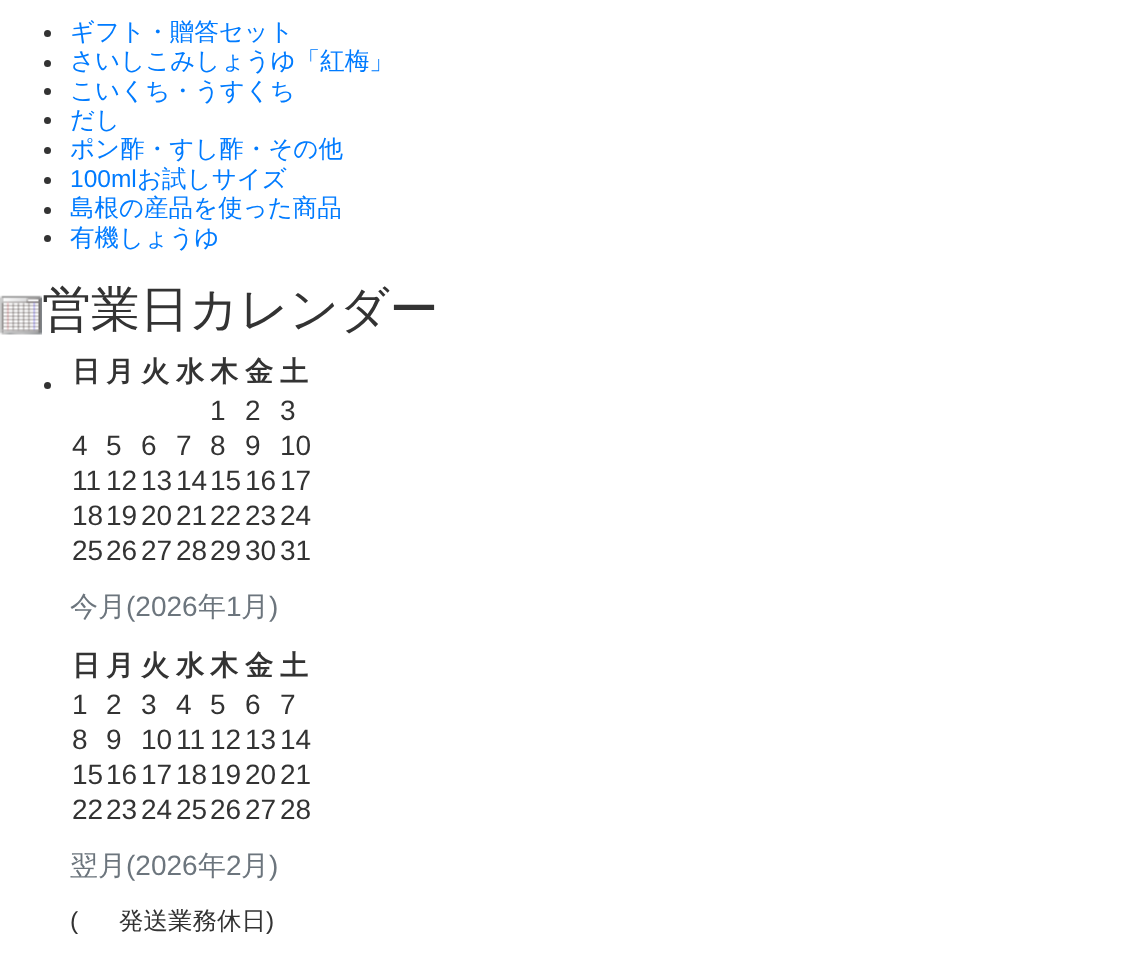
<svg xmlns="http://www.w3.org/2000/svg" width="1148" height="963">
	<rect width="100%" height="100%" fill="#FFFFFF" />
	<circle cx="47.5" cy="33.5" r="3.5" fill="#333333" />
	<text x="70" y="40" font-family="WenQuanYi Zen Hei" font-size="24.5" font-weight="500" fill="#007BFF">ギフト・贈答セット</text>
	<circle cx="47.5" cy="63.5" r="3.5" fill="#333333" />
	<text x="70" y="69" font-family="WenQuanYi Zen Hei" font-size="24.5" font-weight="500" fill="#007BFF">さいしこみしょうゆ「紅梅」</text>
	<circle cx="47.5" cy="91.5" r="3.5" fill="#333333" />
	<text x="70" y="99" font-family="WenQuanYi Zen Hei" font-size="24.5" font-weight="500" fill="#007BFF">こいくち・うすくち</text>
	<circle cx="47.5" cy="120.5" r="3.5" fill="#333333" />
	<text x="70" y="128" font-family="WenQuanYi Zen Hei" font-size="24.5" font-weight="500" fill="#007BFF">だし</text>
	<circle cx="47.5" cy="150.5" r="3.5" fill="#333333" />
	<text x="70" y="157" font-family="WenQuanYi Zen Hei" font-size="24.5" font-weight="500" fill="#007BFF">ポン酢・すし酢・その他</text>
	<circle cx="47.5" cy="180.5" r="3.5" fill="#333333" />
	<text x="70" y="187" font-family="Liberation Sans" font-size="24.5" fill="#007BFF">100ml</text>
	<text x="137" y="187" font-family="WenQuanYi Zen Hei" font-size="24.5" font-weight="500" fill="#007BFF">お試しサイズ</text>
	<circle cx="47.5" cy="210.5" r="3.5" fill="#333333" />
	<text x="70" y="216" font-family="WenQuanYi Zen Hei" font-size="24.5" font-weight="500" fill="#007BFF">島根の産品を使った商品</text>
	<circle cx="47.5" cy="238.5" r="3.5" fill="#333333" />
	<text x="70" y="246" font-family="WenQuanYi Zen Hei" font-size="24.5" font-weight="500" fill="#007BFF">有機しょうゆ</text>
	<image x="0" y="295" width="42" height="40" href="assets/img1.png" />
	<text x="42" y="326" font-family="WenQuanYi Zen Hei" font-size="49" font-weight="500" fill="#333333">営業日カレンダー</text>
	<circle cx="47.5" cy="385.5" r="3.5" fill="#333333" />
	<g font-family="WenQuanYi Zen Hei" font-size="28" font-weight="700" fill="#333333">
		<text x="72" y="381">日</text>
		<text x="106" y="381">月</text>
		<text x="141" y="381">火</text>
		<text x="176" y="381">水</text>
		<text x="210" y="381">木</text>
		<text x="245" y="381">金</text>
		<text x="280" y="381">土</text>
	</g>
	<g font-family="Liberation Sans" font-size="28" fill="#333333">
		<text x="210" y="420">1</text>
		<text x="245" y="420">2</text>
		<text x="280" y="420">3</text>
		<text x="72" y="455">4</text>
		<text x="106" y="455">5</text>
		<text x="141" y="455">6</text>
		<text x="176" y="455">7</text>
		<text x="210" y="455">8</text>
		<text x="245" y="455">9</text>
		<text x="280" y="455">10</text>
		<text x="72" y="490">11</text>
		<text x="106" y="490">12</text>
		<text x="141" y="490">13</text>
		<text x="176" y="490">14</text>
		<text x="210" y="490">15</text>
		<text x="245" y="490">16</text>
		<text x="280" y="490">17</text>
		<text x="72" y="525">18</text>
		<text x="106" y="525">19</text>
		<text x="141" y="525">20</text>
		<text x="176" y="525">21</text>
		<text x="210" y="525">22</text>
		<text x="245" y="525">23</text>
		<text x="280" y="525">24</text>
		<text x="72" y="560">25</text>
		<text x="106" y="560">26</text>
		<text x="141" y="560">27</text>
		<text x="176" y="560">28</text>
		<text x="210" y="560">29</text>
		<text x="245" y="560">30</text>
		<text x="280" y="560">31</text>
	</g>
	<text x="70" y="616" font-family="WenQuanYi Zen Hei" font-size="28" font-weight="500" fill="#6C757D">今月</text>
	<text x="126" y="616" font-family="Liberation Sans" font-size="28" fill="#6C757D">(2026</text>
	<text x="198" y="616" font-family="WenQuanYi Zen Hei" font-size="28" font-weight="500" fill="#6C757D">年</text>
	<text x="226" y="616" font-family="Liberation Sans" font-size="28" fill="#6C757D">1</text>
	<text x="241" y="616" font-family="WenQuanYi Zen Hei" font-size="28" font-weight="500" fill="#6C757D">月</text>
	<text x="269" y="616" font-family="Liberation Sans" font-size="28" fill="#6C757D">)</text>
	<g font-family="WenQuanYi Zen Hei" font-size="28" font-weight="700" fill="#333333">
		<text x="72" y="675">日</text>
		<text x="106" y="675">月</text>
		<text x="141" y="675">火</text>
		<text x="176" y="675">水</text>
		<text x="210" y="675">木</text>
		<text x="245" y="675">金</text>
		<text x="280" y="675">土</text>
	</g>
	<g font-family="Liberation Sans" font-size="28" fill="#333333">
		<text x="72" y="714">1</text>
		<text x="106" y="714">2</text>
		<text x="141" y="714">3</text>
		<text x="176" y="714">4</text>
		<text x="210" y="714">5</text>
		<text x="245" y="714">6</text>
		<text x="280" y="714">7</text>
		<text x="72" y="749">8</text>
		<text x="106" y="749">9</text>
		<text x="141" y="749">10</text>
		<text x="176" y="749">11</text>
		<text x="210" y="749">12</text>
		<text x="245" y="749">13</text>
		<text x="280" y="749">14</text>
		<text x="72" y="784">15</text>
		<text x="106" y="784">16</text>
		<text x="141" y="784">17</text>
		<text x="176" y="784">18</text>
		<text x="210" y="784">19</text>
		<text x="245" y="784">20</text>
		<text x="280" y="784">21</text>
		<text x="72" y="819">22</text>
		<text x="106" y="819">23</text>
		<text x="141" y="819">24</text>
		<text x="176" y="819">25</text>
		<text x="210" y="819">26</text>
		<text x="245" y="819">27</text>
		<text x="280" y="819">28</text>
	</g>
	<text x="70" y="875" font-family="WenQuanYi Zen Hei" font-size="28" font-weight="500" fill="#6C757D">翌月</text>
	<text x="126" y="875" font-family="Liberation Sans" font-size="28" fill="#6C757D">(2026</text>
	<text x="198" y="875" font-family="WenQuanYi Zen Hei" font-size="28" font-weight="500" fill="#6C757D">年</text>
	<text x="226" y="875" font-family="Liberation Sans" font-size="28" fill="#6C757D">2</text>
	<text x="241" y="875" font-family="WenQuanYi Zen Hei" font-size="28" font-weight="500" fill="#6C757D">月</text>
	<text x="269" y="875" font-family="Liberation Sans" font-size="28" fill="#6C757D">)</text>
	<text x="70" y="929" font-family="Liberation Sans" font-size="24.5" fill="#333333">(</text>
	<text x="119" y="929" font-family="WenQuanYi Zen Hei" font-size="24.5" font-weight="500" fill="#333333">発送業務休日</text>
	<text x="266" y="929" font-family="Liberation Sans" font-size="24.5" fill="#333333">)</text>
</svg>
